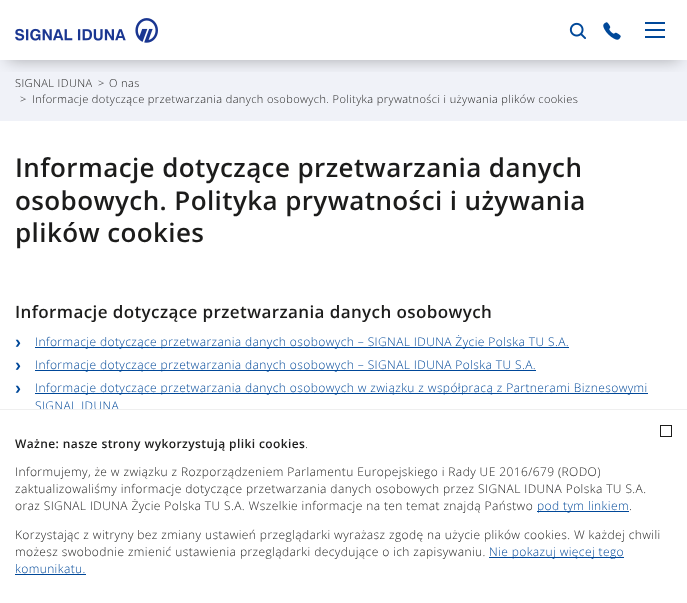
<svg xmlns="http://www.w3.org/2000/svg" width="687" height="603">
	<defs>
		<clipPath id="clip1"><rect x="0" y="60" width="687" height="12" /></clipPath>
	</defs>
	<rect width="100%" height="100%" fill="#FFFFFF" />
	<rect x="0" y="60" width="687" height="61" fill="#F0F2F8" />
	<g clip-path="url(#clip1)">
		<rect x="8" y="16" width="671" height="44" fill="#000000" fill-opacity="0.3" filter="blur(8px)" />
	</g>
	<image x="15" y="18" width="143" height="25" href="assets/img1.png" />
	<image x="569" y="22" width="17" height="17" href="assets/img2.png" />
	<image x="603" y="22" width="18" height="18" href="assets/img3.png" />
	<rect x="645" y="22" width="20" height="2" fill="#004899" />
	<rect x="645" y="29" width="20" height="2" fill="#004899" />
	<rect x="645" y="36" width="20" height="2" fill="#004899" />
	<g font-family="Open Sans" font-size="11" font-weight="300" letter-spacing="0.4" fill="#1C1C1B">
		<text x="15" y="87">SIGNAL IDUNA</text>
		<text x="98" y="87">&gt;</text>
		<text x="109" y="87">O nas</text>
		<text x="20" y="103">&gt;</text>
		<text x="32" y="103">Informacje dotyczące przetwarzania danych osobowych. Polityka prywatności i używania plików cookies</text>
	</g>
	<g font-family="Open Sans" font-size="26" font-weight="600" letter-spacing="0.4" fill="#1C1C1B">
		<text x="15" y="177">Informacje dotyczące przetwarzania danych</text>
		<text x="15" y="210">osobowych. Polityka prywatności i używania</text>
		<text x="15" y="242">plików cookies</text>
	</g>
	<text x="15" y="318" font-family="Open Sans" font-size="17" font-weight="600" letter-spacing="0.4" fill="#1C1C1B">Informacje dotyczące przetwarzania danych osobowych</text>
	<text x="15" y="348" font-family="Liberation Sans" font-size="18" font-weight="700" letter-spacing="0.4" fill="#004899">›</text>
	<rect x="35" y="347" width="534" height="1" fill="#004899" />
	<text x="35" y="346" font-family="Open Sans" font-size="12" font-weight="300" letter-spacing="0.4" fill="#004899">Informacje dotyczące przetwarzania danych osobowych – SIGNAL IDUNA Życie Polska TU S.A.</text>
	<text x="15" y="371" font-family="Liberation Sans" font-size="18" font-weight="700" letter-spacing="0.4" fill="#004899">›</text>
	<rect x="35" y="370" width="501" height="1" fill="#004899" />
	<text x="35" y="369" font-family="Open Sans" font-size="12" font-weight="300" letter-spacing="0.4" fill="#004899">Informacje dotyczące przetwarzania danych osobowych – SIGNAL IDUNA Polska TU S.A.</text>
	<text x="15" y="394" font-family="Liberation Sans" font-size="18" font-weight="700" letter-spacing="0.4" fill="#004899">›</text>
	<rect x="35" y="393" width="613" height="1" fill="#004899" />
	<g font-family="Open Sans" font-size="12" font-weight="300" letter-spacing="0.4" fill="#004899">
		<text x="35" y="392">Informacje dotyczące przetwarzania danych osobowych w związku z współpracą z Partnerami Biznesowymi</text>
		<text x="35" y="410">SIGNAL IDUNA</text>
	</g>
	<rect x="36" y="410" width="63" height="1" fill="#FFFFFF" />
	<rect x="0" y="409" width="687" height="1" fill="#EFEFEF" />
	<rect x="660.5" y="425.5" width="11" height="11" fill="none" stroke="#1C1C1B" />
	<text x="15" y="448" font-family="Open Sans" font-size="12" font-weight="600" letter-spacing="0.4" fill="#1C1C1B">Ważne: nasze strony wykorzystują pliki cookies</text>
	<g font-family="Open Sans" font-size="12" font-weight="300" letter-spacing="0.4" fill="#1C1C1B">
		<text x="305" y="448">.</text>
		<text x="15" y="476">Informujemy, że w związku z Rozporządzeniem Parlamentu Europejskiego i Rady UE 2016/679 (RODO)</text>
		<text x="15" y="493">zaktualizowaliśmy informacje dotyczące przetwarzania danych osobowych przez SIGNAL IDUNA Polska TU S.A.</text>
		<text x="15" y="510">oraz SIGNAL IDUNA Życie Polska TU S.A. Wszelkie informacje na ten temat znajdą Państwo</text>
	</g>
	<rect x="537" y="511" width="92" height="1" fill="#004899" />
	<text x="537" y="510" font-family="Open Sans" font-size="12" font-weight="300" letter-spacing="0.4" fill="#004899">pod tym linkiem</text>
	<g font-family="Open Sans" font-size="12" font-weight="300" letter-spacing="0.4" fill="#1C1C1B">
		<text x="629" y="510">.</text>
		<text x="15" y="539">Korzystając z witryny bez zmiany ustawień przeglądarki wyrażasz zgodę na użycie plików cookies. W każdej chwili</text>
		<text x="15" y="556">możesz swobodnie zmienić ustawienia przeglądarki decydujące o ich zapisywaniu.</text>
	</g>
	<rect x="489" y="557" width="135" height="1" fill="#004899" />
	<g font-family="Open Sans" font-size="12" font-weight="300" letter-spacing="0.4" fill="#004899">
		<text x="489" y="556">Nie pokazuj więcej tego</text>
		<text x="15" y="573">komunikatu.</text>
	</g>
	<rect x="15" y="574" width="71" height="1" fill="#004899" />
</svg>
